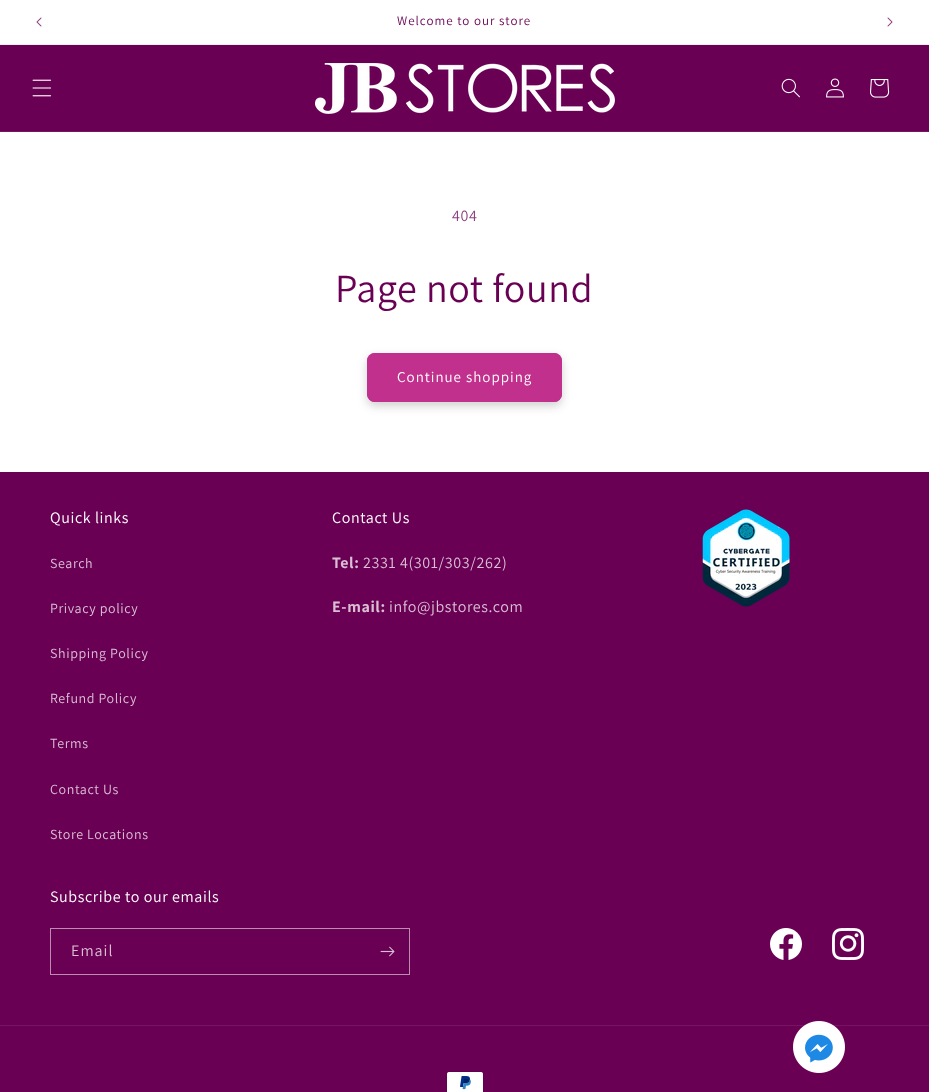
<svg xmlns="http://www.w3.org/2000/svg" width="929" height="1092">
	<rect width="100%" height="100%" fill="#FFFFFF" />
	<rect x="0" y="44" width="929" height="1" fill="#F3EBF1" />
	<image x="36" y="17" width="6" height="10" href="assets/img1.png" />
	<text x="397" y="25" font-family="Assistant" font-size="13" letter-spacing="1" fill="#690054">Welcome to our store</text>
	<image x="887" y="17" width="6" height="10" href="assets/img2.png" />
	<rect x="0" y="45" width="929" height="86" fill="#690054" />
	<rect x="0" y="131" width="929" height="1" fill="#751462" />
	<image x="32" y="79" width="20" height="18" href="assets/img3.png" />
	<image x="315" y="63" width="300" height="51" href="assets/img4.png" />
	<image x="781" y="78" width="19" height="20" href="assets/img5.png" />
	<image x="826" y="78" width="18" height="20" href="assets/img6.png" />
	<image x="870" y="79" width="20" height="19" href="assets/img7.png" />
	<text x="452" y="221" font-family="Assistant" font-size="16" letter-spacing="0.6" fill="#8F407F">404</text>
	<text x="335" y="302" font-family="Assistant" font-size="40" letter-spacing="0.6" fill="#690054">Page not found</text>
	<rect x="367" y="357" width="195" height="49" rx="8" fill="#121212" fill-opacity="0.2" filter="blur(5px)" />
	<rect x="367" y="353" width="195" height="49" rx="8" fill="#C1308D" />
	<rect x="368" y="354" width="193" height="47" rx="7" fill="none" stroke="#C1308D" stroke-width="2" />
	<text x="397" y="382" font-family="Assistant" font-size="15" letter-spacing="1" fill="#FFFFFF">Continue shopping</text>
	<rect x="0" y="472" width="929" height="620" fill="#690054" />
	<text x="50" y="523" font-family="Assistant" font-size="16" letter-spacing="0.6" fill="#FFFFFF">Quick links</text>
	<g font-family="Assistant" font-size="14" letter-spacing="0.6" fill="#DABFD4">
		<text x="50" y="568">Search</text>
		<text x="50" y="613">Privacy policy</text>
		<text x="50" y="658">Shipping Policy</text>
		<text x="50" y="703">Refund Policy</text>
		<text x="50" y="748">Terms</text>
		<text x="50" y="794">Contact Us</text>
		<text x="50" y="839">Store Locations</text>
	</g>
	<text x="332" y="523" font-family="Assistant" font-size="16" letter-spacing="0.6" fill="#FFFFFF">Contact Us</text>
	<text x="332" y="568" font-family="Assistant" font-size="16" font-weight="700" letter-spacing="0.6" fill="#DABFD4">Tel:</text>
	<text x="363" y="568" font-family="Assistant" font-size="16" letter-spacing="0.6" fill="#DABFD4">2331 4(301/303/262)</text>
	<text x="332" y="612" font-family="Assistant" font-size="16" font-weight="700" letter-spacing="0.6" fill="#DABFD4">E-mail:</text>
	<text x="389" y="612" font-family="Assistant" font-size="16" letter-spacing="0.6" fill="#DABFD4">info@jbstores.com</text>
	<image x="702" y="509" width="88" height="98" href="assets/img8.png" />
	<text x="50" y="902" font-family="Assistant" font-size="16" letter-spacing="0.6" fill="#FFFFFF">Subscribe to our emails</text>
	<rect x="50.5" y="928.5" width="359" height="46" fill="none" stroke="#BC8CB2" />
	<text x="71" y="956" font-family="Assistant" font-size="16" letter-spacing="1" fill="#DABFD4">Email</text>
	<image x="380" y="946" width="15" height="11" href="assets/img9.png" />
	<image x="770" y="928" width="32" height="32" href="assets/img10.png" />
	<image x="832" y="928" width="32" height="32" href="assets/img11.png" />
	<rect x="0" y="1025" width="929" height="1" fill="#751462" />
	<image x="446" y="1071" width="38" height="21" href="assets/img12.png" />
	<image x="793" y="1021" width="52" height="52" href="assets/img13.png" />
</svg>
